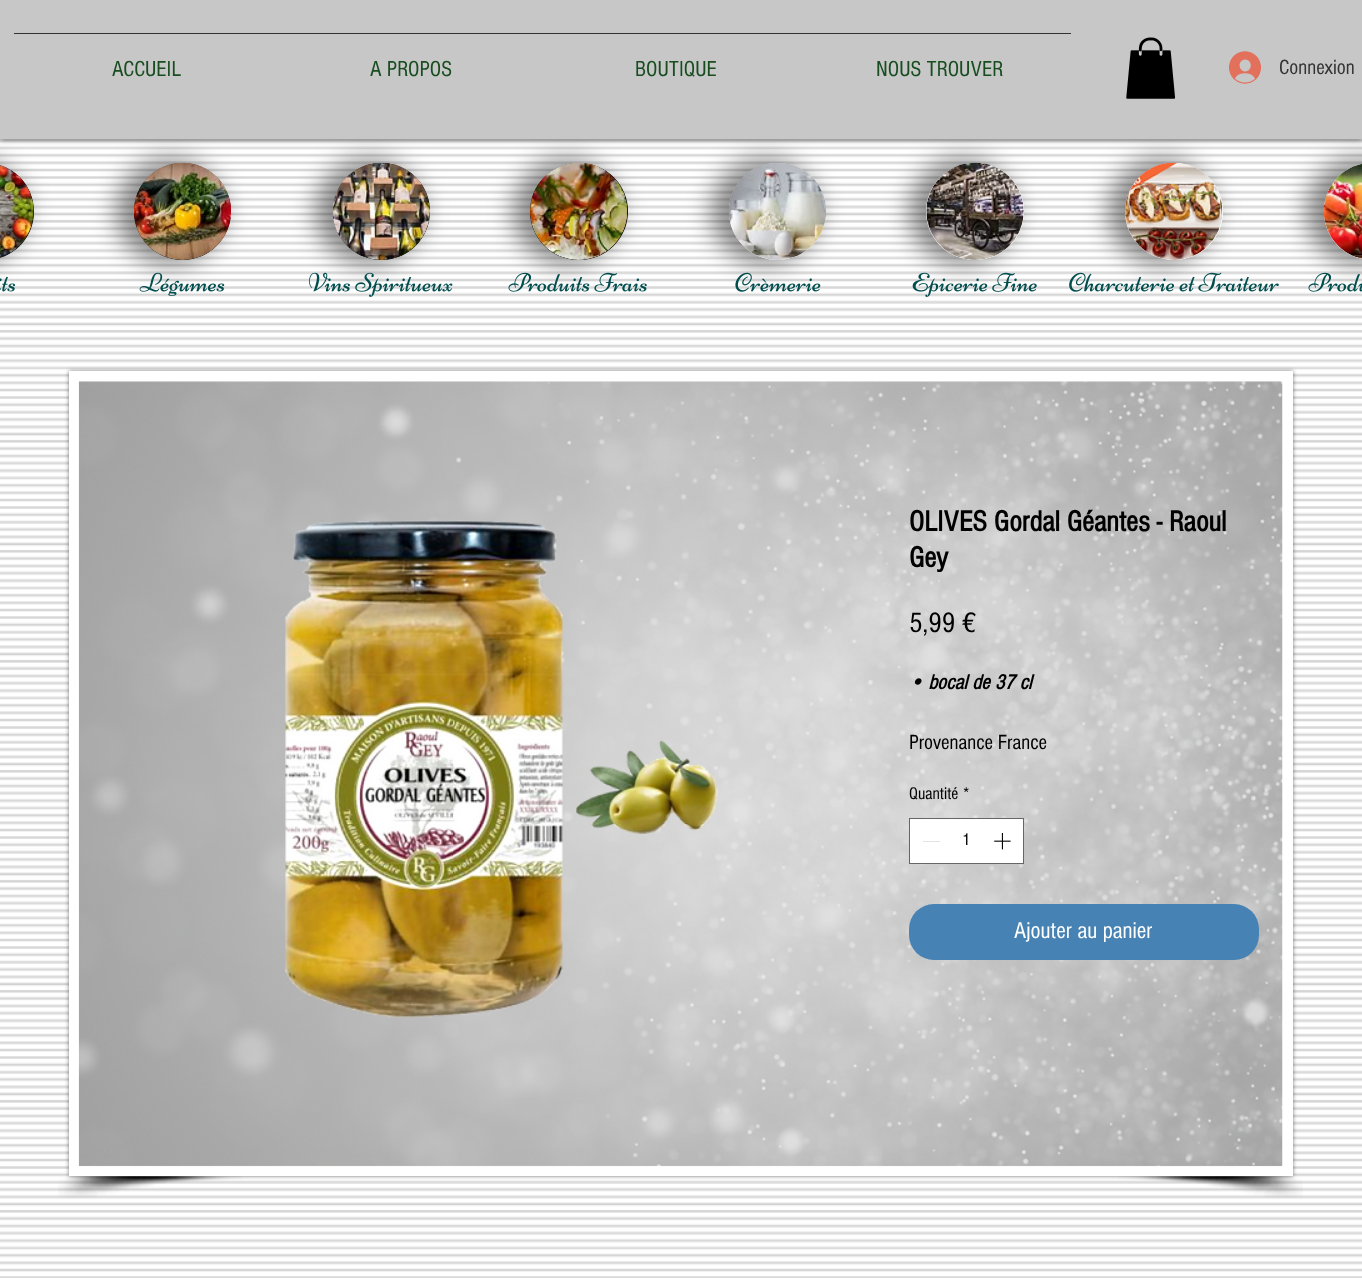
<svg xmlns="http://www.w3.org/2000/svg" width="1362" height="1278">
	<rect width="100%" height="100%" fill="#FFFFFF" />
	<image x="0" y="139" width="1362" height="1139" href="assets/img24.png" />
	<rect x="0" y="0" width="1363" height="139" fill="#000000" fill-opacity="0.7" filter="blur(3px)" />
	<rect x="-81" y="158" width="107" height="107" rx="53.5" fill="#000000" fill-opacity="0.44" filter="blur(12px)" />
	<rect x="116" y="158" width="108" height="107" rx="53.5" fill="#000000" fill-opacity="0.44" filter="blur(12px)" />
	<rect x="315" y="158" width="108" height="107" rx="53.5" fill="#000000" fill-opacity="0.44" filter="blur(12px)" />
	<rect x="513" y="158" width="107" height="107" rx="53.5" fill="#000000" fill-opacity="0.44" filter="blur(12px)" />
	<rect x="711" y="158" width="108" height="107" rx="53.5" fill="#000000" fill-opacity="0.44" filter="blur(12px)" />
	<rect x="909" y="158" width="107" height="107" rx="53.5" fill="#000000" fill-opacity="0.44" filter="blur(12px)" />
	<rect x="1108" y="158" width="107" height="107" rx="53.5" fill="#000000" fill-opacity="0.44" filter="blur(12px)" />
	<image x="1069" y="272" width="210" height="20" href="assets/img17.png" />
	<rect x="1306" y="158" width="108" height="107" rx="53.5" fill="#000000" fill-opacity="0.44" filter="blur(12px)" />
	<rect x="0" y="0" width="1362" height="139" fill="#C7C7C7" />
	<rect x="14" y="33" width="1057" height="1" fill="#333333" />
	<g font-family="'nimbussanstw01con'" font-size="22.5" fill="#184D20">
		<text x="112" y="76">ACCUEIL</text>
		<text x="370" y="76">A PROPOS</text>
		<text x="635" y="76">BOUTIQUE</text>
		<text x="876" y="76">NOUS TROUVER</text>
	</g>
	<image x="1126" y="37" width="50" height="62" href="assets/img1.png" />
	<image x="1229" y="51" width="32" height="33" href="assets/img2.png" />
	<text x="1279" y="74" font-family="'nimbussanstw01con'" font-size="21.25" fill="#333333">Connexion</text>
	<path d="M0 163H-14.5C12.5 163 34 184.5 34 211.5C34 238.5 12.5 260-14.5 260H0Z" fill="#000000" />
	<image x="0" y="165" width="34" height="93" href="assets/img3.png" />
	<circle cx="182.5" cy="211.5" r="48.5" fill="#000000" />
	<image x="134" y="162" width="97" height="98" href="assets/img4.png" />
	<circle cx="381.5" cy="211.5" r="48.5" fill="#000000" />
	<image x="332" y="162" width="98" height="98" href="assets/img5.png" />
	<rect x="530" y="163" width="98" height="97" rx="48.5" fill="#000000" />
	<image x="530" y="162" width="98" height="98" href="assets/img6.png" />
	<circle cx="777.5" cy="211.5" r="48.5" fill="#FFFFFF" />
	<image x="729" y="163" width="97" height="97" href="assets/img7.png" />
	<rect x="926" y="163" width="98" height="97" rx="48.5" fill="#FFFFFF" />
	<image x="926" y="162" width="98" height="98" href="assets/img8.png" />
	<rect x="1125" y="163" width="98" height="97" rx="48.5" fill="#FFFFFF" />
	<image x="1125" y="162" width="98" height="98" href="assets/img9.png" />
	<path d="M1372.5 163H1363V260H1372.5C1345.5 260 1324 238.5 1324 211.5C1324 184.5 1345.5 163 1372.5 163Z" fill="#FFFFFF" />
	<image x="1324" y="164" width="38" height="95" href="assets/img10.png" />
	<image x="0" y="276" width="15" height="16" href="assets/img11.png" />
	<image x="139" y="272" width="86" height="24" href="assets/img12.png" />
	<image x="309" y="272" width="144" height="25" href="assets/img13.png" />
	<image x="508" y="272" width="139" height="20" href="assets/img14.png" />
	<image x="735" y="272" width="86" height="20" href="assets/img15.png" />
	<image x="912" y="272" width="125" height="25" href="assets/img16.png" />
	<image x="1308" y="272" width="54" height="20" href="assets/img18.png" />
	<rect x="69" y="371" width="1224" height="805" fill="#000000" fill-opacity="0.5" filter="blur(2px)" />
	<rect x="69" y="371" width="1224" height="805" fill="#FFFFFF" />
	<image x="78" y="381" width="1205" height="786" href="assets/img19.png" />
	<image x="58" y="1176" width="184" height="22" href="assets/img20.png" />
	<image x="1119" y="1176" width="184" height="22" href="assets/img21.png" />
	<image x="285" y="520" width="433" height="498" href="assets/img22.png" />
	<g font-family="'nimbussanstw01con'" font-size="30" font-weight="700" fill="#000000">
		<text x="909" y="531">OLIVES Gordal Géantes - Raoul</text>
		<text x="909" y="567">Gey</text>
	</g>
	<text x="909" y="632" font-family="'nimbussanstw01con'" font-size="29" fill="#000000">5,99 €</text>
	<text x="909" y="689" font-family="'nimbussanstw01con'" font-size="21.25" font-weight="700" font-style="italic" fill="#000000">• bocal de 37 cl</text>
	<text x="909" y="749" font-family="'nimbussanstw01con'" font-size="21.25" fill="#000000">Provenance France</text>
	<g font-family="'nimbussanstw01con'" font-size="17.5" fill="#000000">
		<text x="909" y="799">Quantité</text>
		<text x="963" y="799">*</text>
	</g>
	<rect x="909.5" y="818.5" width="114" height="45" fill="#FFFFFF" stroke="#666666" />
	<rect x="923" y="841" width="17" height="1" fill="#E3E3E3" />
	<text x="962" y="845" font-family="'nimbussanstw01con'" font-size="17.5" fill="#000000">1</text>
	<image x="994" y="832" width="17" height="18" href="assets/img23.png" />
	<rect x="909" y="904" width="350" height="56" rx="25" fill="#4682B4" />
	<text x="1014" y="938" font-family="'nimbussanstw01con'" font-size="23.75" fill="#FFFFFF">Ajouter au panier</text>
</svg>
